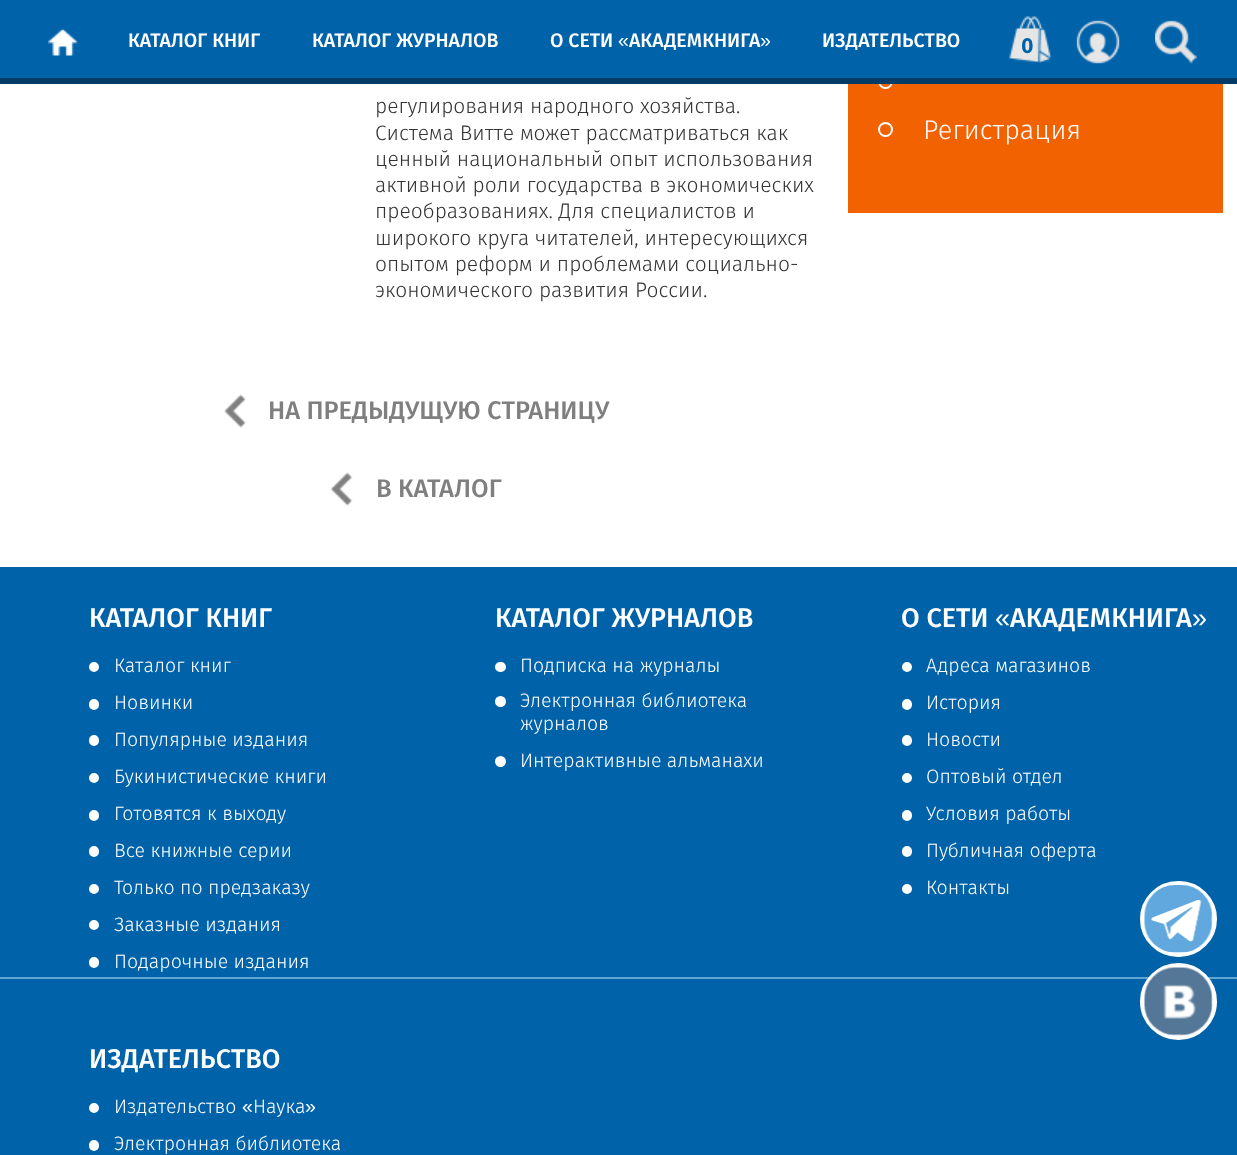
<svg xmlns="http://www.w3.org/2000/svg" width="1237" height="1155">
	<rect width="100%" height="100%" fill="#FFFFFF" />
	<rect x="848" y="84" width="375" height="129" fill="#F26200" />
	<circle cx="885.5" cy="81.5" r="6.5" fill="none" stroke="#FFFFFF" stroke-width="2" />
	<rect x="0" y="0" width="1237" height="78" fill="#0063AA" />
	<rect x="0" y="78" width="1237" height="6" fill="#023B65" />
	<image x="48" y="28" width="30" height="28" href="assets/img1.png" />
	<g font-family="Fira Sans" font-size="19.5" font-weight="500" fill="#FFFFFF">
		<text x="128" y="47">КАТАЛОГ КНИГ</text>
		<text x="312" y="47">КАТАЛОГ ЖУРНАЛОВ</text>
		<text x="550" y="47">О СЕТИ</text>
	</g>
	<text x="618" y="47" font-family="Liberation Sans" font-size="19.5" fill="#FFFFFF">«</text>
	<text x="629" y="47" font-family="Fira Sans" font-size="19.5" font-weight="500" fill="#FFFFFF">АКАДЕМКНИГА</text>
	<text x="760" y="47" font-family="Liberation Sans" font-size="19.5" fill="#FFFFFF">»</text>
	<text x="822" y="47" font-family="Fira Sans" font-size="19.5" font-weight="500" fill="#FFFFFF">ИЗДАТЕЛЬСТВО</text>
	<image x="1009" y="16" width="43" height="47" href="assets/img2.png" />
	<text x="1021" y="53" font-family="Fira Sans" font-size="21" font-weight="700" fill="#0063AA">0</text>
	<image x="1076" y="20" width="44" height="44" href="assets/img3.png" />
	<image x="1155" y="20" width="42" height="44" href="assets/img4.png" />
	<g font-family="Fira Sans" font-size="21" font-weight="300" fill="#333333">
		<text x="375" y="113">регулирования народного хозяйства.</text>
		<text x="375" y="140">Система Витте может рассматриваться как</text>
		<text x="375" y="166">ценный национальный опыт использования</text>
		<text x="375" y="192">активной роли государства в экономических</text>
		<text x="375" y="218">преобразованиях. Для специалистов и</text>
		<text x="375" y="245">широкого круга читателей, интересующихся</text>
		<text x="375" y="271">опытом реформ и проблемами социально-</text>
		<text x="375" y="297">экономического развития России.</text>
	</g>
	<image x="224" y="394" width="22" height="34" href="assets/img5.png" />
	<text x="268" y="419" font-family="Fira Sans" font-size="25.5" font-weight="500" fill="#7F7F7F">НА ПРЕДЫДУЩУЮ СТРАНИЦУ</text>
	<image x="331" y="472" width="22" height="34" href="assets/img6.png" />
	<text x="376" y="497" font-family="Fira Sans" font-size="25.5" font-weight="500" fill="#7F7F7F">В КАТАЛОГ</text>
	<circle cx="885.5" cy="129.5" r="6.5" fill="none" stroke="#FFFFFF" stroke-width="2" />
	<text x="923" y="139" font-family="Fira Sans" font-size="27" font-weight="300" fill="#FFFFFF">Регистрация</text>
	<rect x="0" y="567" width="1237" height="588" fill="#0063AA" />
	<text x="89" y="627" font-family="Fira Sans" font-size="27" font-weight="500" fill="#FFFFFF">КАТАЛОГ КНИГ</text>
	<circle cx="94" cy="667" r="4" fill="#FFFFFF" stroke="#FFFFFF" stroke-width="2" />
	<text x="114" y="672" font-family="Fira Sans" font-size="19.5" font-weight="300" fill="#FFFFFF">Каталог книг</text>
	<rect x="90" y="700" width="8" height="9" rx="4" fill="#FFFFFF" stroke="#FFFFFF" stroke-width="2" />
	<text x="114" y="709" font-family="Fira Sans" font-size="19.5" font-weight="300" fill="#FFFFFF">Новинки</text>
	<rect x="90" y="736" width="8" height="9" rx="4" fill="#FFFFFF" stroke="#FFFFFF" stroke-width="2" />
	<text x="114" y="746" font-family="Fira Sans" font-size="19.5" font-weight="300" fill="#FFFFFF">Популярные издания</text>
	<circle cx="94" cy="778" r="4" fill="#FFFFFF" stroke="#FFFFFF" stroke-width="2" />
	<text x="114" y="783" font-family="Fira Sans" font-size="19.5" font-weight="300" fill="#FFFFFF">Букинистические книги</text>
	<rect x="90" y="811" width="8" height="9" rx="4" fill="#FFFFFF" stroke="#FFFFFF" stroke-width="2" />
	<text x="114" y="820" font-family="Fira Sans" font-size="19.5" font-weight="300" fill="#FFFFFF">Готовятся к выходу</text>
	<rect x="90" y="847" width="8" height="9" rx="4" fill="#FFFFFF" stroke="#FFFFFF" stroke-width="2" />
	<text x="114" y="857" font-family="Fira Sans" font-size="19.5" font-weight="300" fill="#FFFFFF">Все книжные серии</text>
	<circle cx="94" cy="889" r="4" fill="#FFFFFF" stroke="#FFFFFF" stroke-width="2" />
	<text x="114" y="894" font-family="Fira Sans" font-size="19.5" font-weight="300" fill="#FFFFFF">Только по предзаказу</text>
	<circle cx="94" cy="925" r="4" fill="#FFFFFF" stroke="#FFFFFF" stroke-width="2" />
	<text x="114" y="931" font-family="Fira Sans" font-size="19.5" font-weight="300" fill="#FFFFFF">Заказные издания</text>
	<rect x="90" y="958" width="8" height="9" rx="4" fill="#FFFFFF" stroke="#FFFFFF" stroke-width="2" />
	<text x="114" y="968" font-family="Fira Sans" font-size="19.5" font-weight="300" fill="#FFFFFF">Подарочные издания</text>
	<text x="495" y="627" font-family="Fira Sans" font-size="27" font-weight="500" fill="#FFFFFF">КАТАЛОГ ЖУРНАЛОВ</text>
	<rect x="496" y="663" width="9" height="8" rx="4" fill="#FFFFFF" stroke="#FFFFFF" stroke-width="2" />
	<text x="520" y="672" font-family="Fira Sans" font-size="19.5" font-weight="300" fill="#FFFFFF">Подписка на журналы</text>
	<circle cx="500.5" cy="701.5" r="4.5" fill="#FFFFFF" stroke="#FFFFFF" stroke-width="2" />
	<g font-family="Fira Sans" font-size="19.5" font-weight="300" fill="#FFFFFF">
		<text x="520" y="707">Электронная библиотека</text>
		<text x="520" y="730">журналов</text>
	</g>
	<circle cx="500.5" cy="761.5" r="4.5" fill="#FFFFFF" stroke="#FFFFFF" stroke-width="2" />
	<text x="520" y="767" font-family="Fira Sans" font-size="19.5" font-weight="300" fill="#FFFFFF">Интерактивные альманахи</text>
	<text x="901" y="627" font-family="Fira Sans" font-size="27" font-weight="500" fill="#FFFFFF">О СЕТИ</text>
	<text x="995" y="627" font-family="Liberation Sans" font-size="27" fill="#FFFFFF">«</text>
	<text x="1010" y="627" font-family="Fira Sans" font-size="27" font-weight="500" fill="#FFFFFF">АКАДЕМКНИГА</text>
	<text x="1192" y="627" font-family="Liberation Sans" font-size="27" fill="#FFFFFF">»</text>
	<circle cx="907" cy="667" r="4" fill="#FFFFFF" stroke="#FFFFFF" stroke-width="2" />
	<text x="926" y="672" font-family="Fira Sans" font-size="19.5" font-weight="300" fill="#FFFFFF">Адреса магазинов</text>
	<rect x="903" y="700" width="8" height="9" rx="4" fill="#FFFFFF" stroke="#FFFFFF" stroke-width="2" />
	<text x="926" y="709" font-family="Fira Sans" font-size="19.5" font-weight="300" fill="#FFFFFF">История</text>
	<rect x="903" y="736" width="8" height="9" rx="4" fill="#FFFFFF" stroke="#FFFFFF" stroke-width="2" />
	<text x="926" y="746" font-family="Fira Sans" font-size="19.5" font-weight="300" fill="#FFFFFF">Новости</text>
	<circle cx="907" cy="778" r="4" fill="#FFFFFF" stroke="#FFFFFF" stroke-width="2" />
	<text x="926" y="783" font-family="Fira Sans" font-size="19.5" font-weight="300" fill="#FFFFFF">Оптовый отдел</text>
	<rect x="903" y="811" width="8" height="9" rx="4" fill="#FFFFFF" stroke="#FFFFFF" stroke-width="2" />
	<text x="926" y="820" font-family="Fira Sans" font-size="19.5" font-weight="300" fill="#FFFFFF">Условия работы</text>
	<rect x="903" y="847" width="8" height="9" rx="4" fill="#FFFFFF" stroke="#FFFFFF" stroke-width="2" />
	<text x="926" y="857" font-family="Fira Sans" font-size="19.5" font-weight="300" fill="#FFFFFF">Публичная оферта</text>
	<circle cx="907" cy="889" r="4" fill="#FFFFFF" stroke="#FFFFFF" stroke-width="2" />
	<text x="926" y="894" font-family="Fira Sans" font-size="19.5" font-weight="300" fill="#FFFFFF">Контакты</text>
	<rect x="0" y="977" width="1237" height="2" fill="#5EA6D3" />
	<text x="89" y="1068" font-family="Fira Sans" font-size="27" font-weight="500" fill="#FFFFFF">ИЗДАТЕЛЬСТВО</text>
	<circle cx="94" cy="1108" r="4" fill="#FFFFFF" stroke="#FFFFFF" stroke-width="2" />
	<text x="114" y="1113" font-family="Fira Sans" font-size="19.5" font-weight="300" fill="#FFFFFF">Издательство</text>
	<text x="242" y="1113" font-family="Liberation Sans" font-size="19.5" fill="#FFFFFF">«</text>
	<text x="253" y="1113" font-family="Fira Sans" font-size="19.5" font-weight="300" fill="#FFFFFF">Наука</text>
	<text x="305" y="1113" font-family="Liberation Sans" font-size="19.5" fill="#FFFFFF">»</text>
	<rect x="90" y="1141" width="8" height="9" rx="4" fill="#FFFFFF" stroke="#FFFFFF" stroke-width="2" />
	<text x="114" y="1150" font-family="Fira Sans" font-size="19.5" font-weight="300" fill="#FFFFFF">Электронная библиотека</text>
	<rect x="1142.5" y="883.5" width="72" height="71" rx="35.5" fill="none" stroke="#FFFFFF" stroke-width="5" />
	<rect x="1145" y="885" width="67" height="68" rx="33.5" fill="#FFFFFF" />
	<image x="1144" y="885" width="69" height="68" href="assets/img7.png" />
	<circle cx="1178.5" cy="1001.5" r="36" fill="none" stroke="#FFFFFF" stroke-width="5" />
	<circle cx="1178.5" cy="1001.5" r="33.5" fill="#FFFFFF" />
	<image x="1144" y="967" width="69" height="69" href="assets/img8.png" />
</svg>
